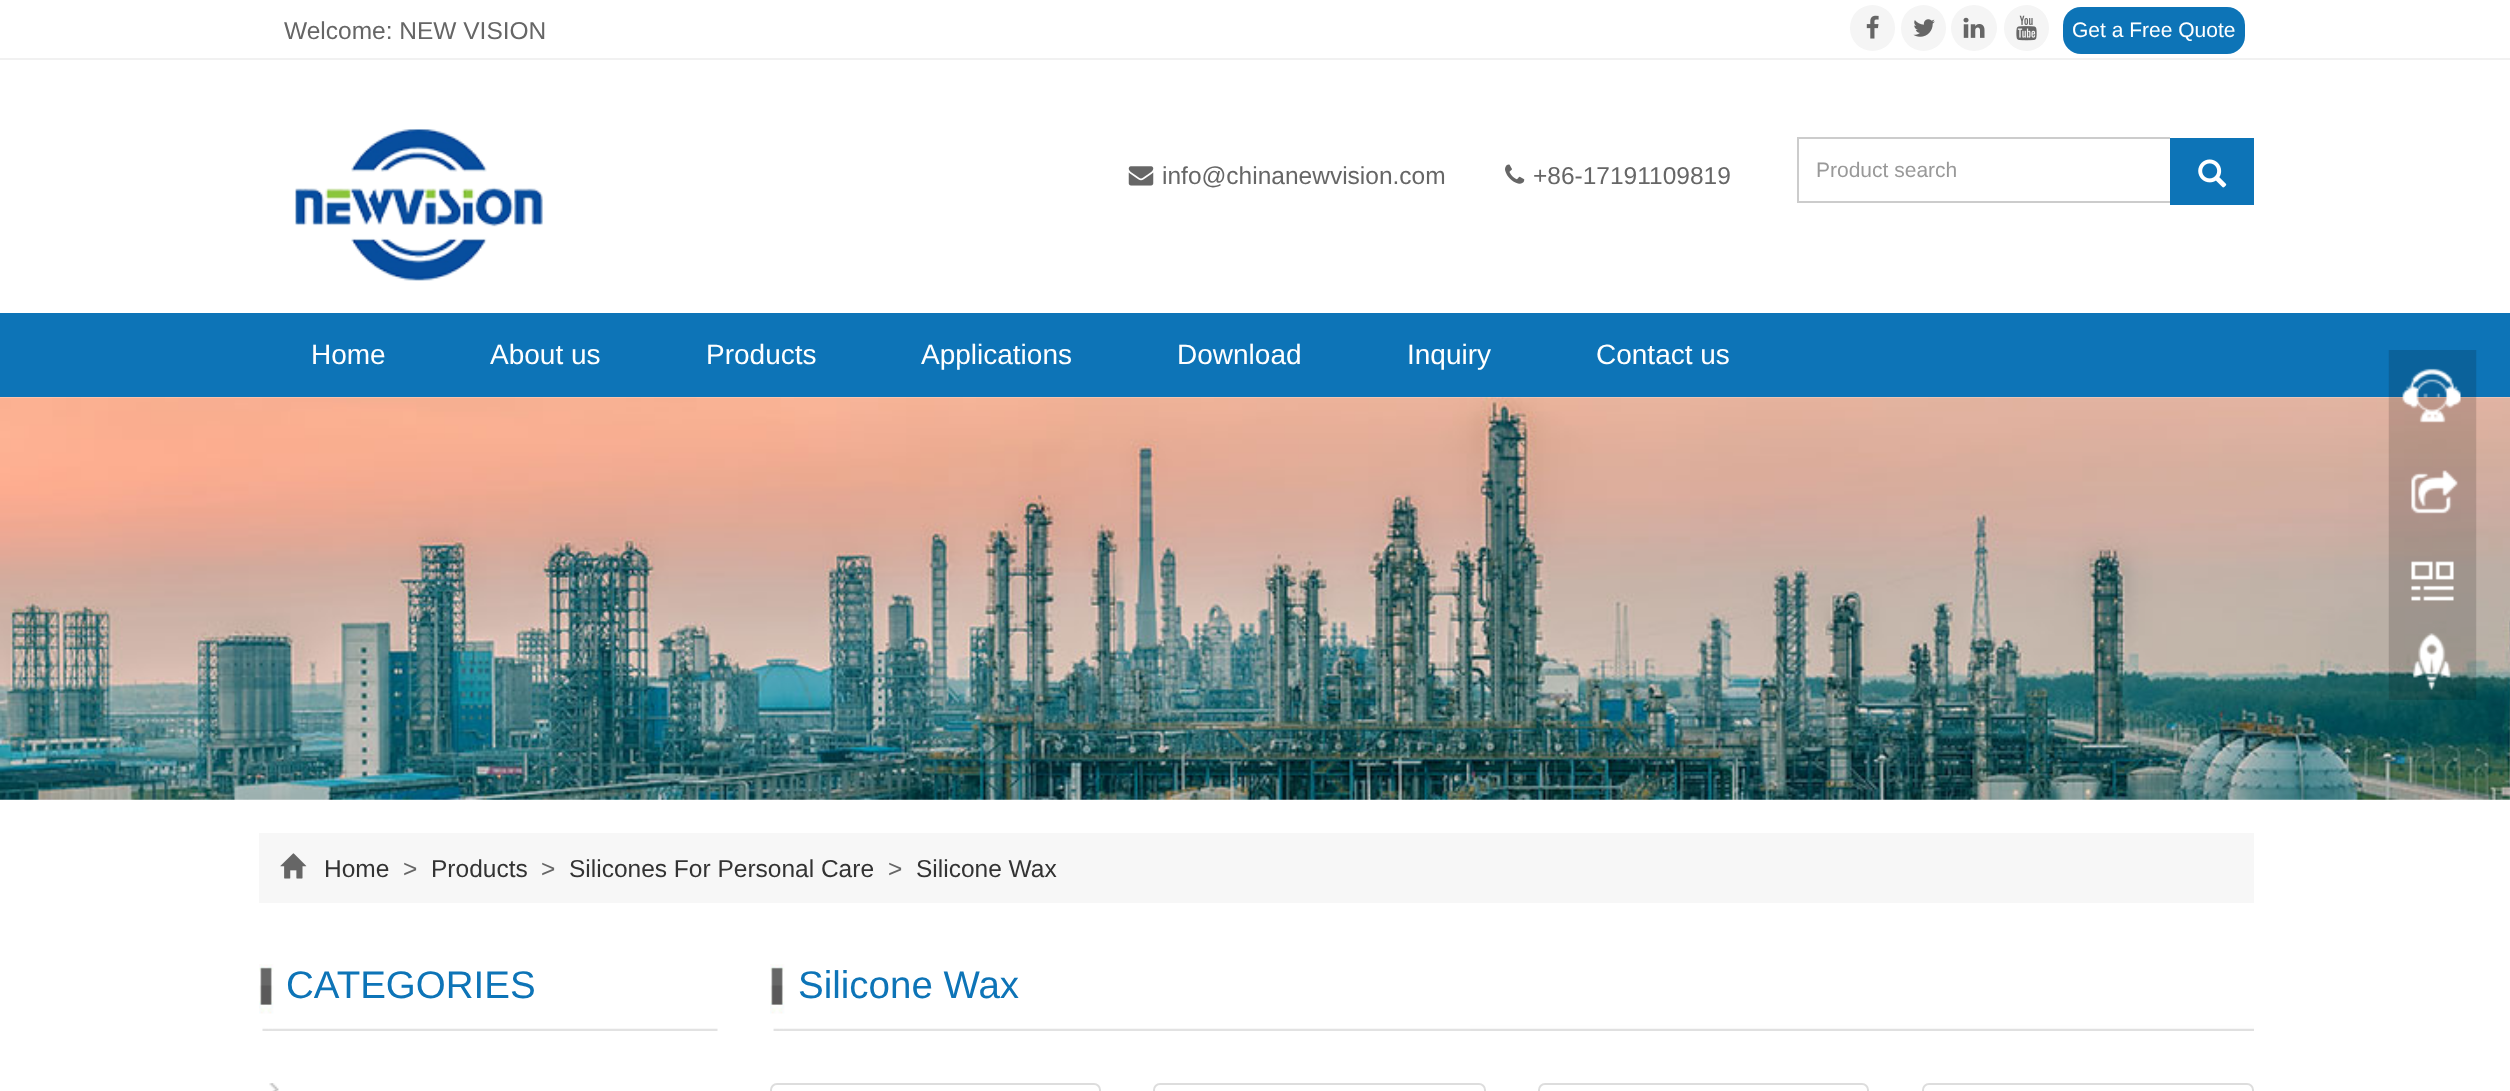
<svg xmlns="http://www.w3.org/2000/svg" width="2510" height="1091">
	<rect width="100%" height="100%" fill="#FFFFFF" />
	<rect x="0" y="58" width="2510" height="2" fill="#F1F1F1" />
	<text x="284" y="39" font-family="Liberation Sans" font-size="24.5" fill="#666666">Welcome: NEW VISION</text>
	<rect x="1850" y="5" width="45" height="46" rx="22.5" fill="#F5F5F5" />
	<image x="1866" y="15" width="13" height="24" href="assets/img1.png" />
	<rect x="1901" y="5" width="45" height="46" rx="22.5" fill="#F5F5F5" />
	<image x="1913" y="19" width="22" height="18" href="assets/img2.png" />
	<circle cx="1974" cy="28" r="23" fill="#F5F5F5" />
	<image x="1963" y="17" width="22" height="21" href="assets/img3.png" />
	<rect x="2004" y="5" width="45" height="46" rx="22.5" fill="#F5F5F5" />
	<image x="2016" y="15" width="21" height="26" href="assets/img4.png" />
	<rect x="2063" y="7" width="182" height="47" rx="18" fill="#0D74B7" />
	<text x="2072" y="37" font-family="Liberation Sans" font-size="21" fill="#FFFFFF">Get a Free Quote</text>
	<image x="295" y="129" width="248" height="152" href="assets/img5.png" />
	<image x="1128" y="166" width="26" height="20" href="assets/img6.png" />
	<text x="1162" y="184" font-family="Liberation Sans" font-size="24.5" fill="#666666">info@chinanewvision.com</text>
	<image x="1505" y="164" width="20" height="20" href="assets/img7.png" />
	<text x="1533" y="184" font-family="Liberation Sans" font-size="24.5" fill="#666666">+86-17191109819</text>
	<rect x="1797" y="137" width="373" height="2" fill="#CCCCCC" />
	<rect x="1797" y="201" width="373" height="2" fill="#CCCCCC" />
	<rect x="1797" y="137" width="2" height="66" fill="#CCCCCC" />
	<text x="1816" y="177" font-family="Liberation Sans" font-size="21" fill="#999999">Product search</text>
	<rect x="2170" y="138" width="84" height="67" fill="#0D74B7" />
	<image x="2198" y="159" width="29" height="29" href="assets/img8.png" />
	<rect x="0" y="313" width="2510" height="84" fill="#0D74B7" />
	<g font-family="Liberation Sans" font-size="28" fill="#FFFFFF">
		<text x="311" y="364">Home</text>
		<text x="490" y="364">About us</text>
		<text x="706" y="364">Products</text>
		<text x="921" y="364">Applications</text>
		<text x="1177" y="364">Download</text>
		<text x="1407" y="364">Inquiry</text>
		<text x="1596" y="364">Contact us</text>
	</g>
	<image x="0" y="397" width="2510" height="403" href="assets/img10.png" />
	<image x="2388" y="350" width="89" height="350" href="assets/img9.png" />
	<rect x="259" y="833" width="1995" height="70" fill="#F7F7F7" />
	<image x="280" y="853" width="27" height="26" href="assets/img11.png" />
	<text x="324" y="877" font-family="Liberation Sans" font-size="24.5" fill="#333333">Home</text>
	<text x="403" y="877" font-family="Liberation Sans" font-size="24.5" fill="#666666">&gt;</text>
	<text x="431" y="877" font-family="Liberation Sans" font-size="24.5" fill="#333333">Products</text>
	<text x="541" y="877" font-family="Liberation Sans" font-size="24.5" fill="#666666">&gt;</text>
	<text x="569" y="877" font-family="Liberation Sans" font-size="24.5" fill="#333333">Silicones For Personal Care</text>
	<text x="888" y="877" font-family="Liberation Sans" font-size="24.5" fill="#666666">&gt;</text>
	<text x="916" y="877" font-family="Liberation Sans" font-size="24.5" fill="#333333">Silicone Wax</text>
	<image x="259" y="964" width="459" height="67" href="assets/img12.png" />
	<text x="286" y="998" font-family="Liberation Sans" font-size="38.5" fill="#0D74B7">CATEGORIES</text>
	<image x="269" y="1083" width="10" height="8" href="assets/img13.png" />
	<image x="770" y="964" width="1484" height="67" href="assets/img14.png" />
	<text x="798" y="998" font-family="Liberation Sans" font-size="38.5" fill="#0D74B7">Silicone Wax</text>
	<rect x="771" y="1084" width="329" height="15" rx="6" fill="none" stroke="#DDDDDD" stroke-width="2" />
	<rect x="1154" y="1084" width="331" height="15" rx="6" fill="none" stroke="#DDDDDD" stroke-width="2" />
	<rect x="1539" y="1084" width="329" height="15" rx="6" fill="none" stroke="#DDDDDD" stroke-width="2" />
	<rect x="1923" y="1084" width="330" height="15" rx="6" fill="none" stroke="#DDDDDD" stroke-width="2" />
</svg>
